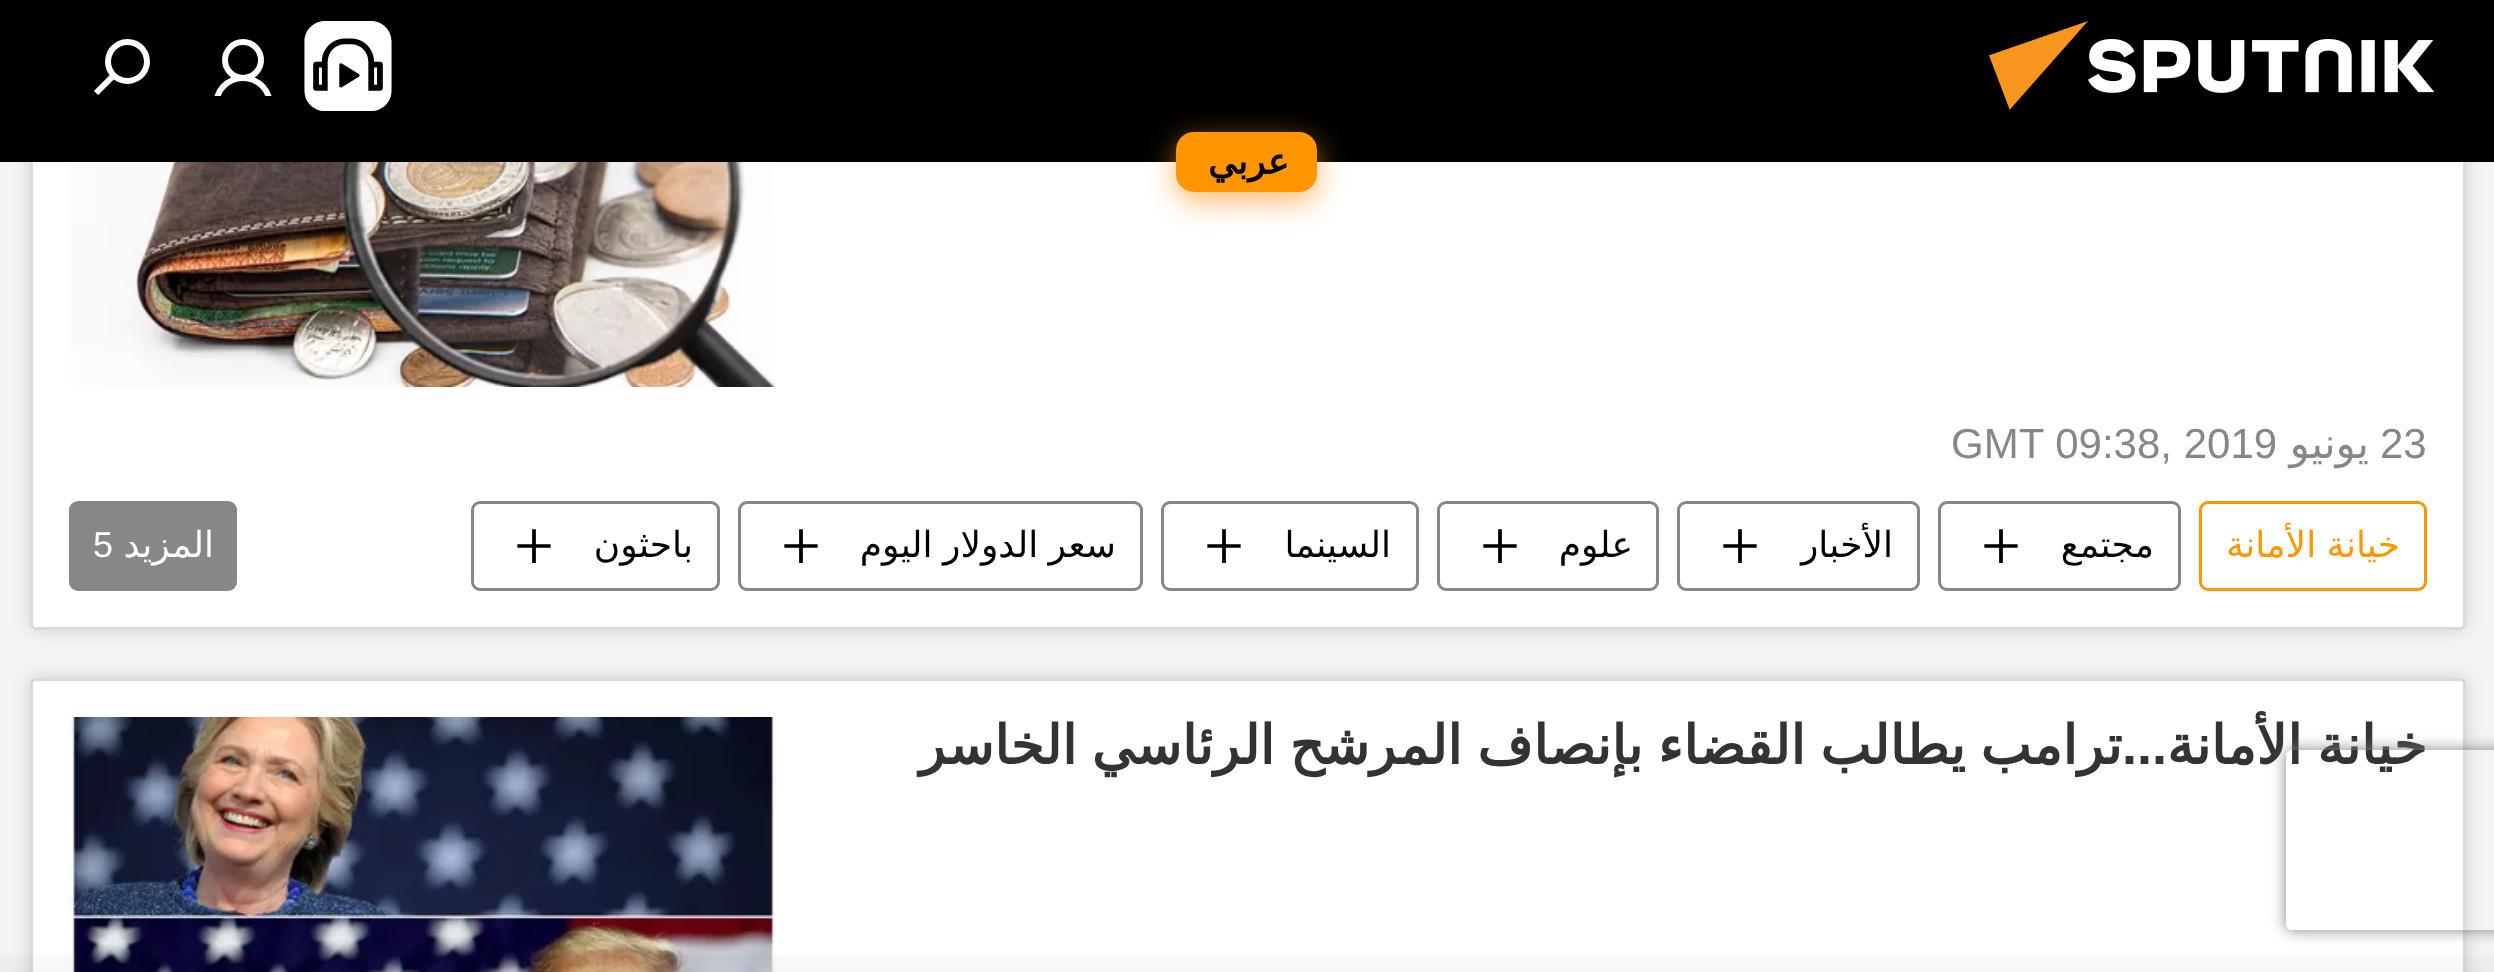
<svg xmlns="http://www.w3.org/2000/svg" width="2494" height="972">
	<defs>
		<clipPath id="clip1"><path d="M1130 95H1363V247H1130ZM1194 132H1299C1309 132 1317 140 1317 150V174C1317 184 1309 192 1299 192H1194C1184 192 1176 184 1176 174V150C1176 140 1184 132 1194 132Z" clip-rule="evenodd" /></clipPath>
		<clipPath id="clip2"><path d="M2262 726H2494V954H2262ZM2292 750H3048C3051.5 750 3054 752.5 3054 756V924C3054 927.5 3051.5 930 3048 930H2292C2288.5 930 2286 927.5 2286 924V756C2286 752.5 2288.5 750 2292 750Z" clip-rule="evenodd" /></clipPath>
		<linearGradient id="g1" gradientUnits="userSpaceOnUse" x1="1248" y1="927" x2="1248" y2="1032"><stop offset="0" stop-color="#000000" stop-opacity="0" /><stop offset="0.61" stop-color="#000000" stop-opacity="0.05" /><stop offset="0.86" stop-color="#000000" stop-opacity="0.09" /><stop offset="1" stop-color="#000000" stop-opacity="0.18" /></linearGradient>
	</defs>
	<rect width="100%" height="100%" fill="#F4F4F4" />
	<rect x="30" y="-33" width="2436" height="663" rx="6" fill="#000000" fill-opacity="0.15" filter="blur(9px)" />
	<rect x="31.5" y="-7.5" width="2433" height="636" rx="4.5" fill="#FFFFFF" stroke="#DADADA" stroke-width="3" />
	<rect x="0" y="0" width="2494" height="162" fill="#000000" />
	<image x="304" y="21" width="88" height="90" href="assets/img1.png" />
	<image x="214" y="39" width="58" height="57" href="assets/img2.png" />
	<image x="94" y="39" width="56" height="56" href="assets/img3.png" />
	<image x="1989" y="21" width="446" height="89" href="assets/img4.png" />
	<g clip-path="url(#clip1)">
		<rect x="1176" y="141" width="141" height="60" rx="18" fill="#F8961D" fill-opacity="0.66" filter="blur(15px)" />
	</g>
	<rect x="1176" y="132" width="141" height="60" rx="18" fill="#FF9600" />
	<text x="1289" y="174" font-family="DejaVu Sans" font-size="36" font-weight="700" direction="rtl" fill="#000000">عربي</text>
	<image x="69" y="162" width="708" height="225" href="assets/img5.png" />
	<text x="2380" y="458" font-family="Liberation Sans" font-size="42" fill="#878787">23</text>
	<text x="2369" y="458" font-family="DejaVu Sans" font-size="42" direction="rtl" fill="#878787">يونيو</text>
	<text x="1951" y="458" font-family="Liberation Sans" font-size="42" fill="#878787">GMT 09:38, 2019</text>
	<rect x="2200.5" y="502.5" width="225" height="87" rx="7.5" fill="none" stroke="#FF9600" stroke-width="3" />
	<text x="2400" y="557" word-spacing="-1" font-family="DejaVu Sans" font-size="36" direction="rtl" fill="#FF9600">خيانة الأمانة</text>
	<rect x="1939.5" y="502.5" width="240" height="87" rx="7.5" fill="none" stroke="#878787" stroke-width="3" />
	<text x="2154" y="557" font-family="DejaVu Sans" font-size="36" direction="rtl" fill="#000000">مجتمع</text>
	<image x="1984" y="529" width="34" height="34" href="assets/img6.png" />
	<rect x="1678.5" y="502.5" width="240" height="87" rx="7.5" fill="none" stroke="#878787" stroke-width="3" />
	<text x="1893" y="557" font-family="DejaVu Sans" font-size="36" direction="rtl" fill="#000000">الأخبار</text>
	<image x="1723" y="529" width="34" height="34" href="assets/img6.png" />
	<rect x="1438.5" y="502.5" width="219" height="87" rx="7.5" fill="none" stroke="#878787" stroke-width="3" />
	<text x="1633" y="557" font-family="DejaVu Sans" font-size="36" direction="rtl" fill="#000000">علوم</text>
	<image x="1483" y="529" width="34" height="34" href="assets/img6.png" />
	<rect x="1162.5" y="502.5" width="255" height="87" rx="7.5" fill="none" stroke="#878787" stroke-width="3" />
	<text x="1391" y="557" font-family="DejaVu Sans" font-size="36" direction="rtl" fill="#000000">السينما</text>
	<image x="1207" y="529" width="34" height="34" href="assets/img6.png" />
	<rect x="739.5" y="502.5" width="402" height="87" rx="7.5" fill="none" stroke="#878787" stroke-width="3" />
	<text x="1116" y="557" word-spacing="-1" font-family="DejaVu Sans" font-size="36" direction="rtl" fill="#000000">سعر الدولار اليوم</text>
	<image x="784" y="529" width="34" height="34" href="assets/img6.png" />
	<rect x="472.5" y="502.5" width="246" height="87" rx="7.5" fill="none" stroke="#878787" stroke-width="3" />
	<text x="693" y="557" font-family="DejaVu Sans" font-size="36" direction="rtl" fill="#000000">باحثون</text>
	<image x="517" y="529" width="34" height="34" href="assets/img6.png" />
	<rect x="69" y="501" width="168" height="90" rx="9" fill="#878787" />
	<text x="214" y="557" font-family="DejaVu Sans" font-size="36" direction="rtl" fill="#FFFFFF">المزيد</text>
	<text x="93" y="557" font-family="Liberation Sans" font-size="36" fill="#FFFFFF">5</text>
	<rect x="30" y="678" width="2436" height="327" rx="6" fill="#000000" fill-opacity="0.15" filter="blur(9px)" />
	<rect x="31.5" y="679.5" width="2433" height="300" rx="4.5" fill="#FFFFFF" stroke="#DADADA" stroke-width="3" />
	<text x="2427" y="764" word-spacing="-2.25" font-family="DejaVu Sans" font-size="54" font-weight="700" direction="rtl" fill="#333333">خيانة الأمانة</text>
	<text x="2167" y="764" font-family="Liberation Sans" font-size="54" font-weight="700" direction="rtl" fill="#333333">...</text>
	<text x="2122" y="764" word-spacing="-2.25" font-family="DejaVu Sans" font-size="54" font-weight="700" direction="rtl" fill="#333333">ترامب يطالب القضاء بإنصاف المرشح الرئاسي الخاسر</text>
	<image x="69" y="717" width="708" height="255" href="assets/img7.png" />
	<g clip-path="url(#clip2)">
		<rect x="2286" y="750" width="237" height="180" rx="6" fill="#808080" filter="blur(7.5px)" />
	</g>
	<rect x="0" y="955" width="2494" height="17" fill="url(#g1)" />
</svg>
